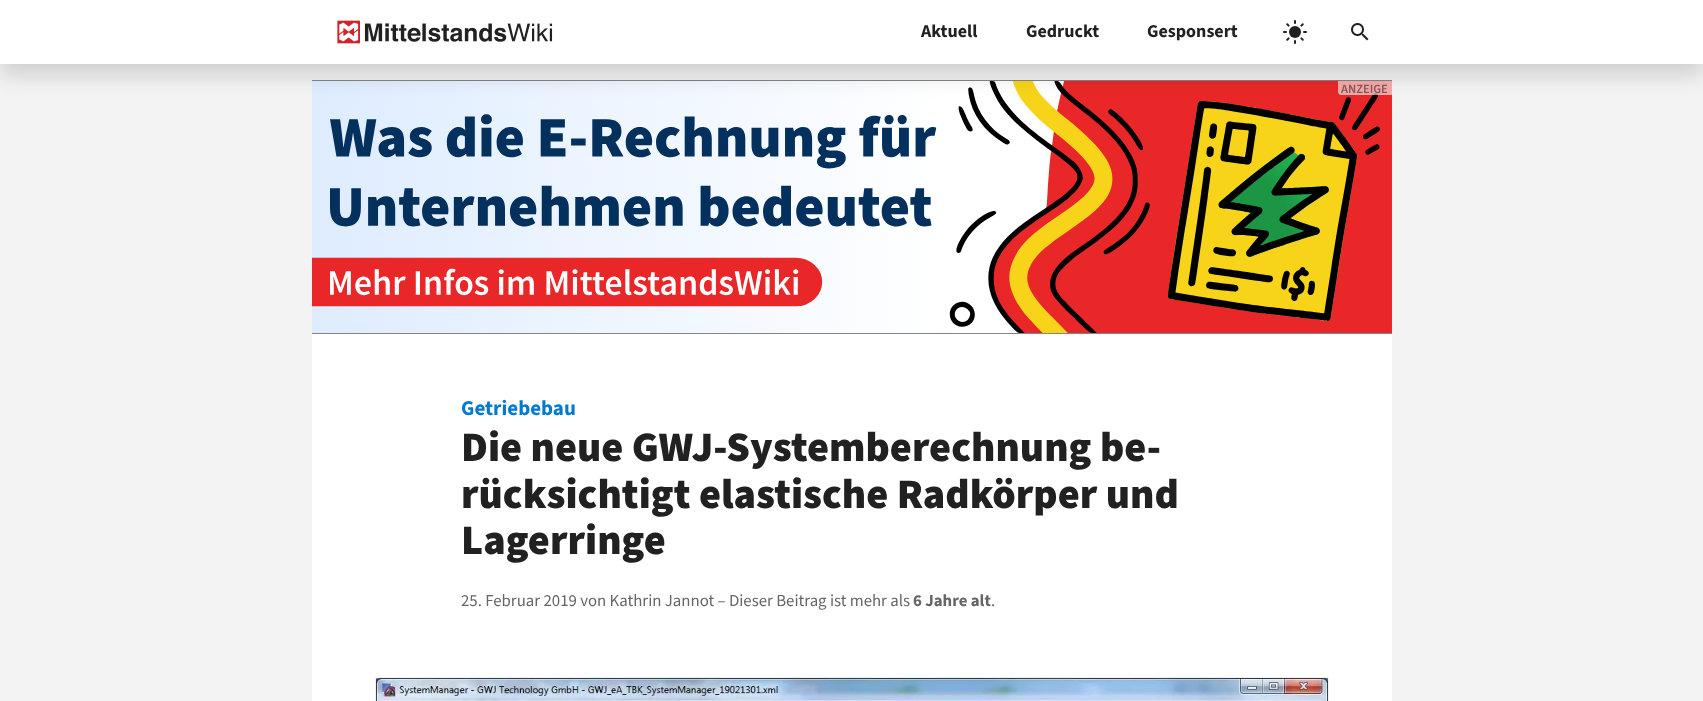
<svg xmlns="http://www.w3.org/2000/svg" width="1703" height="701">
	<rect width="100%" height="100%" fill="#F3F3F3" />
	<rect x="312" y="80" width="1080" height="1" fill="#858585" />
	<image x="312" y="81" width="1080" height="252" href="assets/img4.png" />
	<path d="M1338 81H1392V95H1341C1339.5 95 1338 93.5 1338 92Z" fill="#FFFFFF" fill-opacity="0.6" />
	<rect x="0" y="11" width="1703" height="64" fill="#000000" fill-opacity="0.15" filter="blur(10.5px)" />
	<rect x="0" y="0" width="1703" height="64" fill="#FFFFFF" />
	<image x="337" y="20" width="216" height="24" href="assets/img1.png" />
	<g font-family="'Source Sans 3'" font-size="18" font-weight="700" fill="#212121">
		<text x="921" y="37">Aktuell</text>
		<text x="1026" y="37">Gedruckt</text>
		<text x="1147" y="37">Gesponsert</text>
	</g>
	<image x="1283" y="20" width="24" height="24" href="assets/img2.png" />
	<image x="1351" y="23" width="18" height="18" href="assets/img3.png" />
	<rect x="312" y="334" width="1080" height="367" fill="#FFFFFF" />
	<rect x="312" y="333" width="1080" height="1" fill="#858585" />
	<text x="1341" y="93" font-family="'Source Sans 3'" font-size="12.5" font-weight="600" fill="#805858">ANZEIGE</text>
	<text x="461" y="415" font-family="'Source Sans 3'" font-size="21" font-weight="700" fill="#007ACC">Getriebebau</text>
	<g font-family="'Source Sans 3'" font-size="42" font-weight="900" fill="#212121">
		<text x="461" y="461">Die neue GWJ-Systemberechnung be-</text>
		<text x="461" y="508">rücksichtigt elastische Radkörper und</text>
		<text x="461" y="554">Lagerringe</text>
	</g>
	<text x="461" y="606" font-family="'Source Sans 3'" font-size="16.8" fill="#666666">25. Februar 2019 von Kathrin Jannot – Dieser Beitrag ist mehr als</text>
	<text x="913" y="606" font-family="'Source Sans 3'" font-size="16.8" font-weight="700" fill="#666666">6 Jahre alt</text>
	<text x="991" y="606" font-family="'Source Sans 3'" font-size="16.8" fill="#666666">.</text>
	<rect x="375.5" y="677.5" width="953" height="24" fill="none" stroke="#F2F2F2" />
	<image x="376" y="678" width="952" height="23" href="assets/img5.png" />
</svg>
